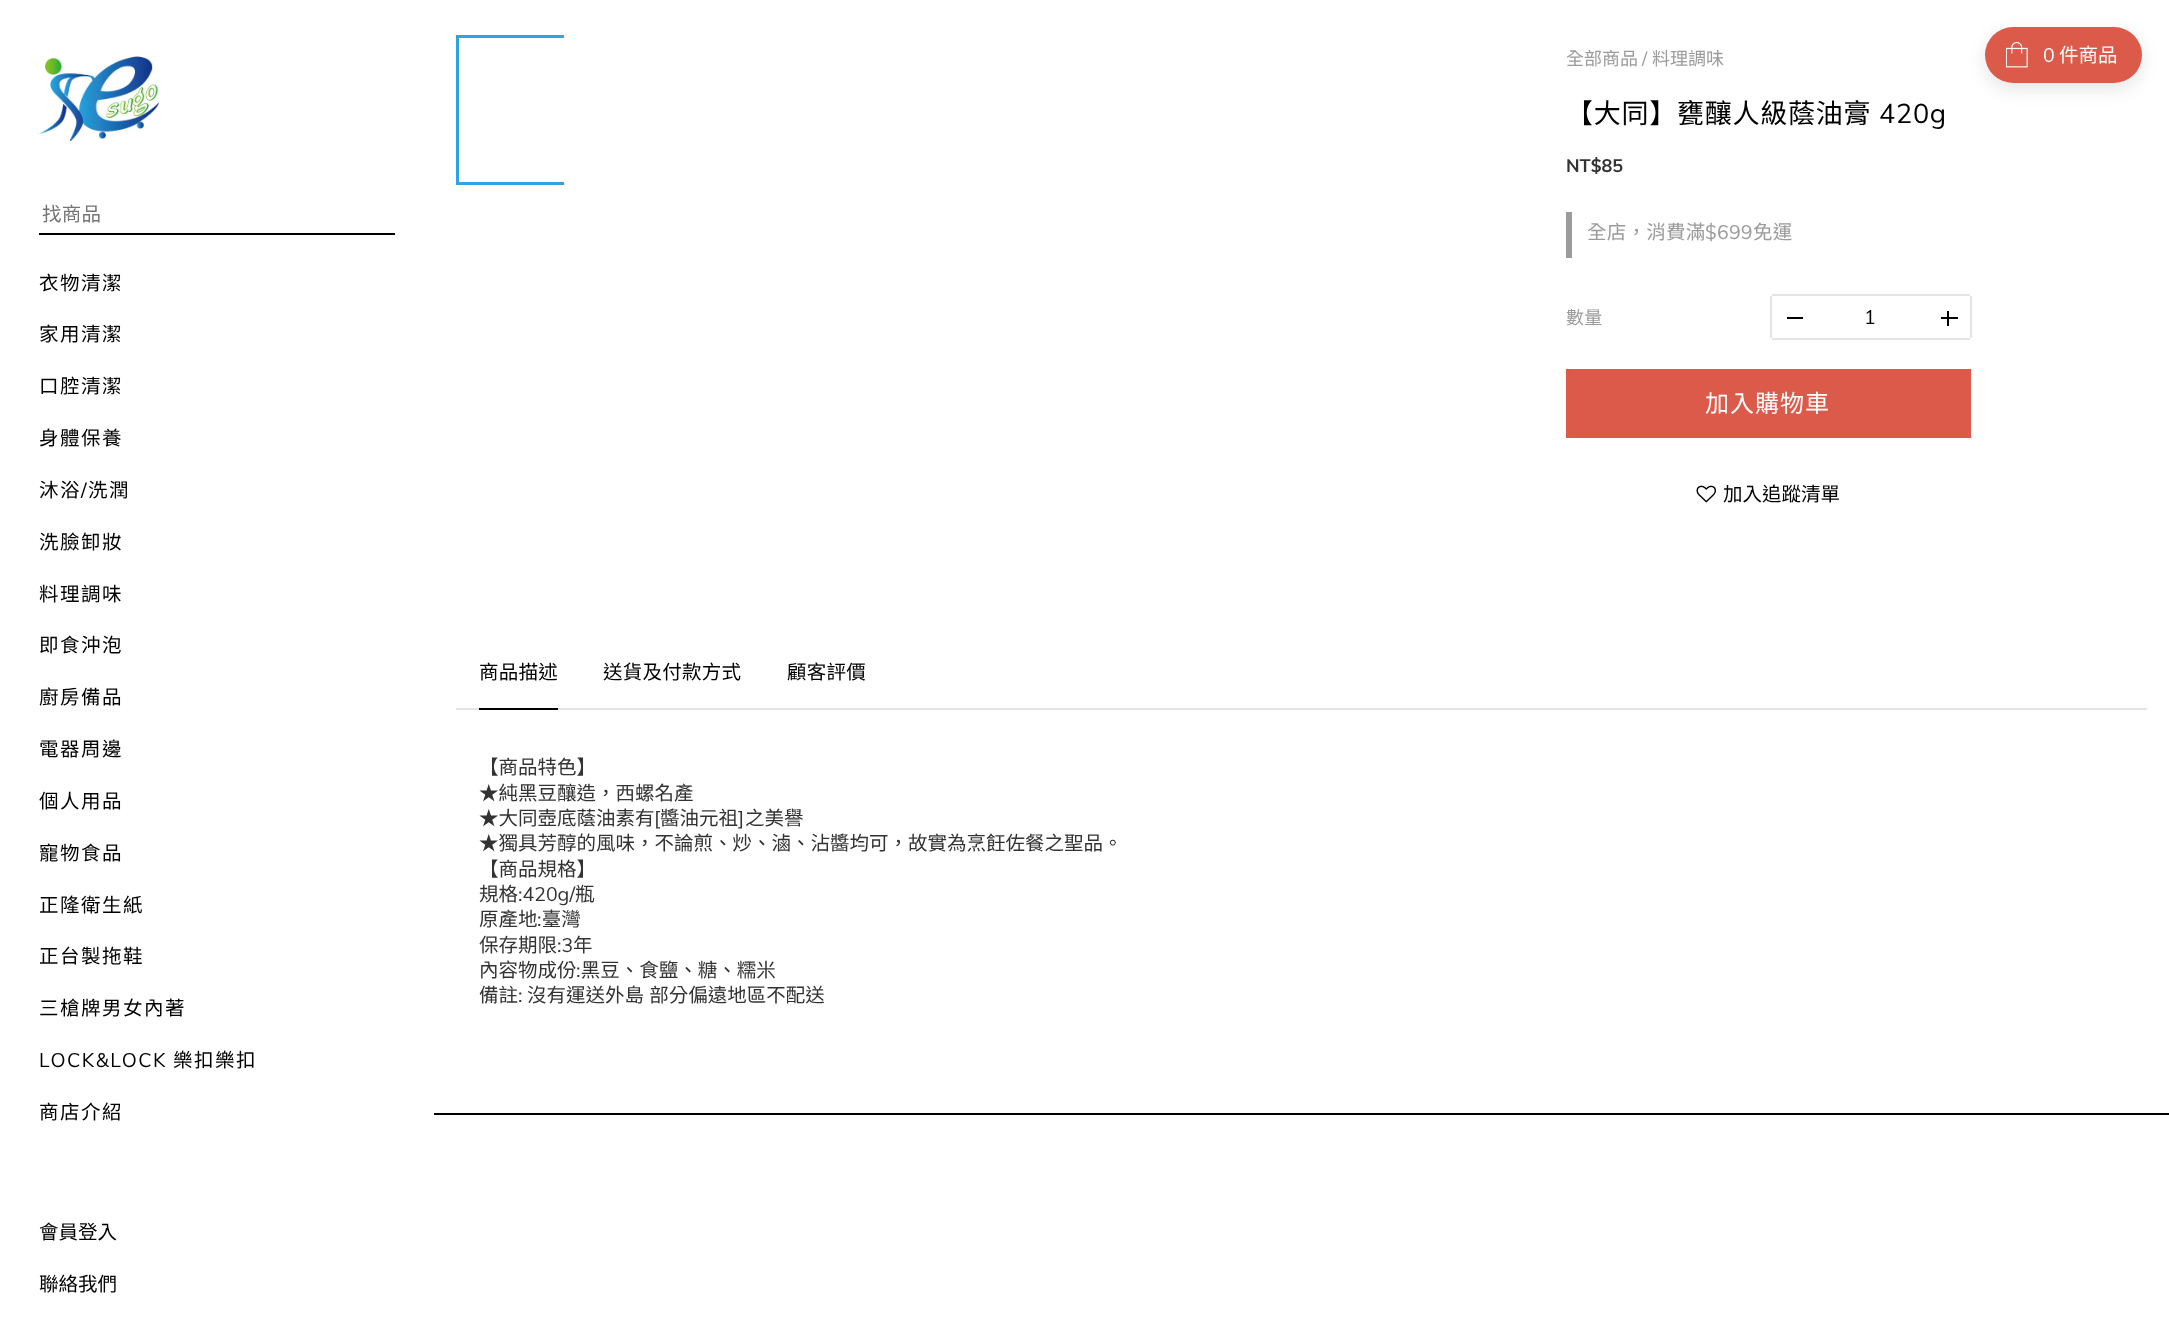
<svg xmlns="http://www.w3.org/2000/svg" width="2169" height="1336">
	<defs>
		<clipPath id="clip1"><rect x="456" y="35" width="108" height="150" /></clipPath>
	</defs>
	<rect width="100%" height="100%" fill="#FFFFFF" />
	<image x="39" y="56" width="120" height="85" href="assets/img1.png" />
	<rect x="39" y="233" width="356" height="2" fill="#000000" />
	<text x="42" y="221" font-family="Noto Sans TC" font-size="19.5" letter-spacing="0.25" fill="#757575">找商品</text>
	<g font-family="Noto Sans TC" font-size="19.5" letter-spacing="1.5" fill="#000000">
		<text x="39" y="290">衣物清潔</text>
		<text x="39" y="341">家用清潔</text>
		<text x="39" y="393">口腔清潔</text>
		<text x="39" y="445">身體保養</text>
		<text x="39" y="497">沐浴</text>
	</g>
	<text x="81" y="497" font-family="Muli" font-size="19.5" letter-spacing="1.5" fill="#000000">/</text>
	<g font-family="Noto Sans TC" font-size="19.5" letter-spacing="1.5" fill="#000000">
		<text x="88" y="497">洗潤</text>
		<text x="39" y="549">洗臉卸妝</text>
		<text x="39" y="601">料理調味</text>
		<text x="39" y="652">即食沖泡</text>
		<text x="39" y="704">廚房備品</text>
		<text x="39" y="756">電器周邊</text>
		<text x="39" y="808">個人用品</text>
		<text x="39" y="860">寵物食品</text>
		<text x="39" y="912">正隆衛生紙</text>
		<text x="39" y="963">正台製拖鞋</text>
		<text x="39" y="1015">三槍牌男女內著</text>
	</g>
	<text x="39" y="1067" font-family="Muli" font-size="19.5" letter-spacing="1.5" fill="#000000">LOCK&amp;LOCK</text>
	<g font-family="Noto Sans TC" font-size="19.5" letter-spacing="1.5" fill="#000000">
		<text x="173" y="1067">樂扣樂扣</text>
		<text x="39" y="1119">商店介紹</text>
	</g>
	<g font-family="Noto Sans TC" font-size="19.5" fill="#000000">
		<text x="39" y="1239">會員登入</text>
		<text x="39" y="1291">聯絡我們</text>
	</g>
	<g clip-path="url(#clip1)">
		<rect x="457.5" y="36.5" width="147" height="147" fill="none" stroke="#30A4E1" stroke-width="3" />
	</g>
	<text x="1566" y="65" font-family="Noto Sans TC" font-size="18" fill="#9B9B9B">全部商品</text>
	<text x="1642" y="65" font-family="Muli" font-size="18" fill="#9B9B9B">/</text>
	<text x="1652" y="65" font-family="Noto Sans TC" font-size="18" fill="#9B9B9B">料理調味</text>
	<text x="1566" y="123" font-family="Noto Sans TC" font-size="27" letter-spacing="0.75" fill="#000000">【大同】甕釀人級蔭油膏</text>
	<text x="1879" y="123" font-family="Muli" font-size="27" letter-spacing="0.75" fill="#000000">420g</text>
	<text x="1566" y="172" font-family="Muli" font-size="18" font-weight="700" fill="#333333">NT$85</text>
	<rect x="1566" y="212" width="6" height="46" fill="#9B9B9B" />
	<text x="1587" y="239" font-family="Noto Sans TC" font-size="19.5" letter-spacing="0.25" fill="#9B9B9B">全店，消費滿</text>
	<text x="1705" y="239" font-family="Muli" font-size="19.5" letter-spacing="0.25" fill="#9B9B9B">$699</text>
	<text x="1753" y="239" font-family="Noto Sans TC" font-size="19.5" letter-spacing="0.25" fill="#9B9B9B">免運</text>
	<text x="1566" y="324" font-family="Noto Sans TC" font-size="18" letter-spacing="0.25" fill="#9B9B9B">數量</text>
	<rect x="1772" y="294" width="198" height="2" fill="#E4E4E4" />
	<rect x="1772" y="338" width="198" height="2" fill="#E4E4E4" />
	<rect x="1770" y="296" width="2" height="42" fill="#E4E4E4" />
	<rect x="1787" y="317" width="16" height="2" fill="#000000" />
	<text x="1864" y="324" font-family="Muli" font-size="19.5" fill="#000000">1</text>
	<rect x="1970" y="296" width="2" height="42" fill="#E4E4E4" />
	<rect x="1941" y="317" width="17" height="2" fill="#000000" />
	<rect x="1947" y="311" width="2" height="15" fill="#000000" />
	<rect x="1566" y="369" width="405" height="69" fill="#DC5A4A" />
	<text x="1705" y="412" font-family="Noto Sans TC" font-size="24" letter-spacing="1" fill="#FFFFFF">加入購物車</text>
	<image x="1696" y="485" width="20" height="18" href="assets/img2.png" />
	<text x="1723" y="501" font-family="Noto Sans TC" font-size="19.5" fill="#000000">加入追蹤清單</text>
	<rect x="456" y="708" width="1691" height="2" fill="#E4E4E4" />
	<rect x="479" y="708" width="79" height="2" fill="#000000" />
	<g font-family="Noto Sans TC" font-size="19.5" letter-spacing="0.25" fill="#000000">
		<text x="479" y="679">商品描述</text>
		<text x="603" y="679">送貨及付款方式</text>
		<text x="787" y="679">顧客評價</text>
	</g>
	<g font-family="Noto Sans TC" font-size="19.5" fill="#333333">
		<text x="479" y="774">【商品特色】</text>
		<text x="479" y="800">★純黑豆釀造，西螺名產</text>
		<text x="479" y="825">★大同壺底蔭油素有</text>
	</g>
	<text x="654" y="825" font-family="Muli" font-size="19.5" fill="#333333">[</text>
	<text x="660" y="825" font-family="Noto Sans TC" font-size="19.5" fill="#333333">醬油元祖</text>
	<text x="738" y="825" font-family="Muli" font-size="19.5" fill="#333333">]</text>
	<g font-family="Noto Sans TC" font-size="19.5" fill="#333333">
		<text x="745" y="825">之美譽</text>
		<text x="479" y="850">★獨具芳醇的風味，不論煎、炒、滷、沾醬均可，故實為烹飪佐餐之聖品。</text>
		<text x="479" y="876">【商品規格】</text>
		<text x="479" y="901">規格</text>
	</g>
	<text x="518" y="901" font-family="Muli" font-size="19.5" fill="#333333">:420g/</text>
	<g font-family="Noto Sans TC" font-size="19.5" fill="#333333">
		<text x="575" y="901">瓶</text>
		<text x="479" y="926">原產地 臺灣</text>
	</g>
	<text x="537" y="926" font-family="Muli" font-size="19.5" fill="#333333">:</text>
	<text x="479" y="952" font-family="Noto Sans TC" font-size="19.5" fill="#333333">保存期限</text>
	<text x="557" y="952" font-family="Muli" font-size="19.5" fill="#333333">:3</text>
	<g font-family="Noto Sans TC" font-size="19.5" fill="#333333">
		<text x="573" y="952">年</text>
		<text x="479" y="977">內容物成份 黑豆、食鹽、糖、糯米</text>
	</g>
	<text x="576" y="977" font-family="Muli" font-size="19.5" fill="#333333">:</text>
	<text x="479" y="1002" font-family="Noto Sans TC" font-size="19.5" fill="#333333">備註</text>
	<text x="518" y="1002" font-family="Muli" font-size="19.5" fill="#333333">:</text>
	<text x="527" y="1002" word-spacing="1" font-family="Noto Sans TC" font-size="19.5" fill="#333333">沒有運送外島 部分偏遠地區不配送</text>
	<rect x="1985" y="33" width="157" height="56" rx="28" fill="#000000" fill-opacity="0.1" filter="blur(9px)" />
	<rect x="1985" y="27" width="157" height="56" rx="28" fill="#DC5A4A" />
	<image x="2006" y="42" width="22" height="26" href="assets/img3.png" />
	<text x="2043" y="62" font-family="Muli" font-size="19.5" fill="#FFFFFF">0</text>
	<text x="2059" y="62" font-family="Noto Sans TC" font-size="19.5" fill="#FFFFFF">件商品</text>
	<rect x="434" y="1113" width="1735" height="2" fill="#000000" />
</svg>
